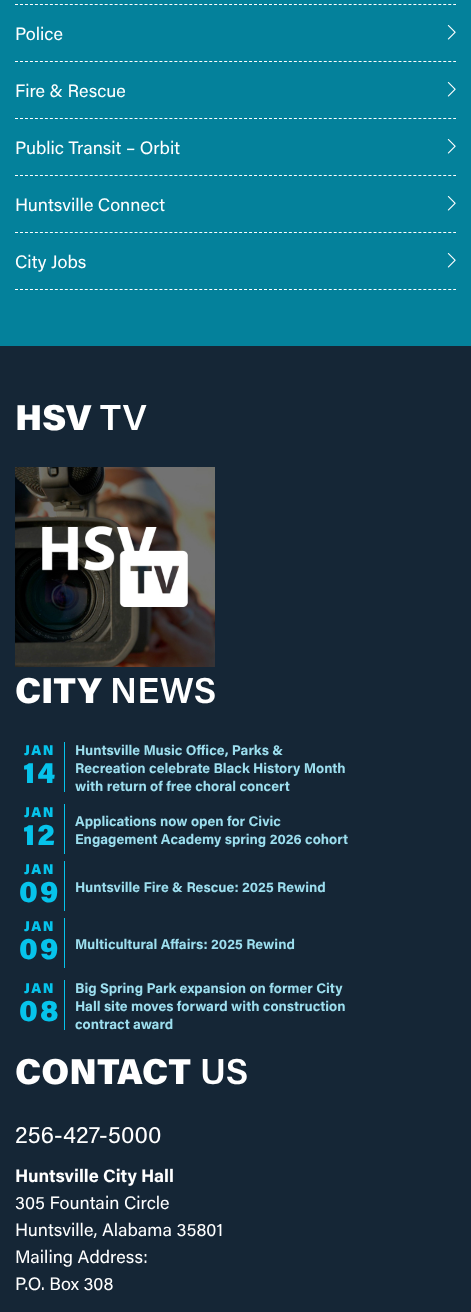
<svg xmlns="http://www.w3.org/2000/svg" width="471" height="1312">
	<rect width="100%" height="100%" fill="#04819B" />
	<path d="M15 4.5H456" fill="none" stroke="#FFFFFF" stroke-dasharray="3 1.98" />
	<path d="M15 61.5H456" fill="none" stroke="#FFFFFF" stroke-dasharray="3 1.98" />
	<text x="15" y="40" font-family="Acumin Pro" font-size="18" fill="#FFFFFF">Police</text>
	<image x="447" y="25" width="9" height="15" href="assets/img1.png" />
	<path d="M15 118.5H456" fill="none" stroke="#FFFFFF" stroke-dasharray="3 1.98" />
	<text x="15" y="97" font-family="Acumin Pro" font-size="18" fill="#FFFFFF">Fire &amp; Rescue</text>
	<image x="447" y="82" width="9" height="15" href="assets/img1.png" />
	<path d="M15 175.5H456" fill="none" stroke="#FFFFFF" stroke-dasharray="3 1.98" />
	<text x="15" y="154" font-family="Acumin Pro" font-size="18" fill="#FFFFFF">Public Transit – Orbit</text>
	<image x="447" y="139" width="9" height="15" href="assets/img1.png" />
	<path d="M15 232.5H456" fill="none" stroke="#FFFFFF" stroke-dasharray="3 1.98" />
	<text x="15" y="211" font-family="Acumin Pro" font-size="18" fill="#FFFFFF">Huntsville Connect</text>
	<image x="447" y="196" width="9" height="15" href="assets/img1.png" />
	<path d="M15 289.5H456" fill="none" stroke="#FFFFFF" stroke-dasharray="3 1.98" />
	<text x="15" y="268" font-family="Acumin Pro" font-size="18" fill="#FFFFFF">City Jobs</text>
	<image x="447" y="253" width="9" height="15" href="assets/img1.png" />
	<rect x="0" y="346" width="471" height="966" fill="#152636" />
	<text x="15" y="430" font-family="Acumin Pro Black" font-size="36" font-weight="900" fill="#FFFFFF">HSV</text>
	<text x="100" y="430" font-family="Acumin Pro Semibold" font-size="36" font-weight="600" fill="#FFFFFF">TV</text>
	<image x="15" y="467" width="200" height="200" href="assets/img2.png" />
	<text x="15" y="703" font-family="Acumin Pro Black" font-size="36" font-weight="900" fill="#FFFFFF">CITY</text>
	<text x="110" y="703" font-family="Acumin Pro Semibold" font-size="36" font-weight="600" fill="#FFFFFF">NEWS</text>
	<rect x="64" y="742" width="1" height="50" fill="#06C3EB" />
	<text x="24" y="755" font-family="Acumin Pro Black" font-size="14" font-weight="900" letter-spacing="1.5" fill="#06C3EB">JAN</text>
	<text x="23" y="783" font-family="Acumin Pro Black" font-size="30" font-weight="900" letter-spacing="2" fill="#06C3EB">14</text>
	<g font-family="Acumin Pro" font-size="14" font-weight="700" fill="#9CDEEE">
		<text x="75" y="755">Huntsville Music Office, Parks &amp;</text>
		<text x="75" y="773">Recreation celebrate Black History Month</text>
		<text x="75" y="791">with return of free choral concert</text>
	</g>
	<rect x="64" y="804" width="1" height="50" fill="#06C3EB" />
	<text x="24" y="817" font-family="Acumin Pro Black" font-size="14" font-weight="900" letter-spacing="1.5" fill="#06C3EB">JAN</text>
	<text x="23" y="845" font-family="Acumin Pro Black" font-size="30" font-weight="900" letter-spacing="2" fill="#06C3EB">12</text>
	<g font-family="Acumin Pro" font-size="14" font-weight="700" fill="#9CDEEE">
		<text x="75" y="826">Applications now open for Civic</text>
		<text x="75" y="844">Engagement Academy spring 2026 cohort</text>
	</g>
	<rect x="64" y="861" width="1" height="50" fill="#06C3EB" />
	<text x="24" y="874" font-family="Acumin Pro Black" font-size="14" font-weight="900" letter-spacing="1.5" fill="#06C3EB">JAN</text>
	<text x="19" y="902" font-family="Acumin Pro Black" font-size="30" font-weight="900" letter-spacing="2" fill="#06C3EB">09</text>
	<text x="75" y="892" font-family="Acumin Pro" font-size="14" font-weight="700" fill="#9CDEEE">Huntsville Fire &amp; Rescue: 2025 Rewind</text>
	<rect x="64" y="918" width="1" height="50" fill="#06C3EB" />
	<text x="24" y="931" font-family="Acumin Pro Black" font-size="14" font-weight="900" letter-spacing="1.5" fill="#06C3EB">JAN</text>
	<text x="19" y="959" font-family="Acumin Pro Black" font-size="30" font-weight="900" letter-spacing="2" fill="#06C3EB">09</text>
	<text x="75" y="949" font-family="Acumin Pro" font-size="14" font-weight="700" fill="#9CDEEE">Multicultural Affairs: 2025 Rewind</text>
	<rect x="64" y="980" width="1" height="50" fill="#06C3EB" />
	<text x="24" y="993" font-family="Acumin Pro Black" font-size="14" font-weight="900" letter-spacing="1.5" fill="#06C3EB">JAN</text>
	<text x="19" y="1021" font-family="Acumin Pro Black" font-size="30" font-weight="900" letter-spacing="2" fill="#06C3EB">08</text>
	<g font-family="Acumin Pro" font-size="14" font-weight="700" fill="#9CDEEE">
		<text x="75" y="993">Big Spring Park expansion on former City</text>
		<text x="75" y="1011">Hall site moves forward with construction</text>
		<text x="75" y="1029">contract award</text>
	</g>
	<text x="15" y="1084" font-family="Acumin Pro Black" font-size="36" font-weight="900" fill="#FFFFFF">CONTACT</text>
	<text x="200" y="1084" font-family="Acumin Pro Semibold" font-size="36" font-weight="600" fill="#FFFFFF">US</text>
	<text x="15" y="1143" font-family="Acumin Pro" font-size="24" fill="#FFFFFF">256-427-5000</text>
	<text x="15" y="1182" font-family="Acumin Pro" font-size="18" font-weight="700" fill="#FFFFFF">Huntsville City Hall</text>
	<g font-family="Acumin Pro" font-size="18" fill="#FFFFFF">
		<text x="15" y="1209">305 Fountain Circle</text>
		<text x="15" y="1236">Huntsville, Alabama 35801</text>
		<text x="15" y="1263">Mailing Address:</text>
		<text x="15" y="1290">P.O. Box 308</text>
	</g>
</svg>
